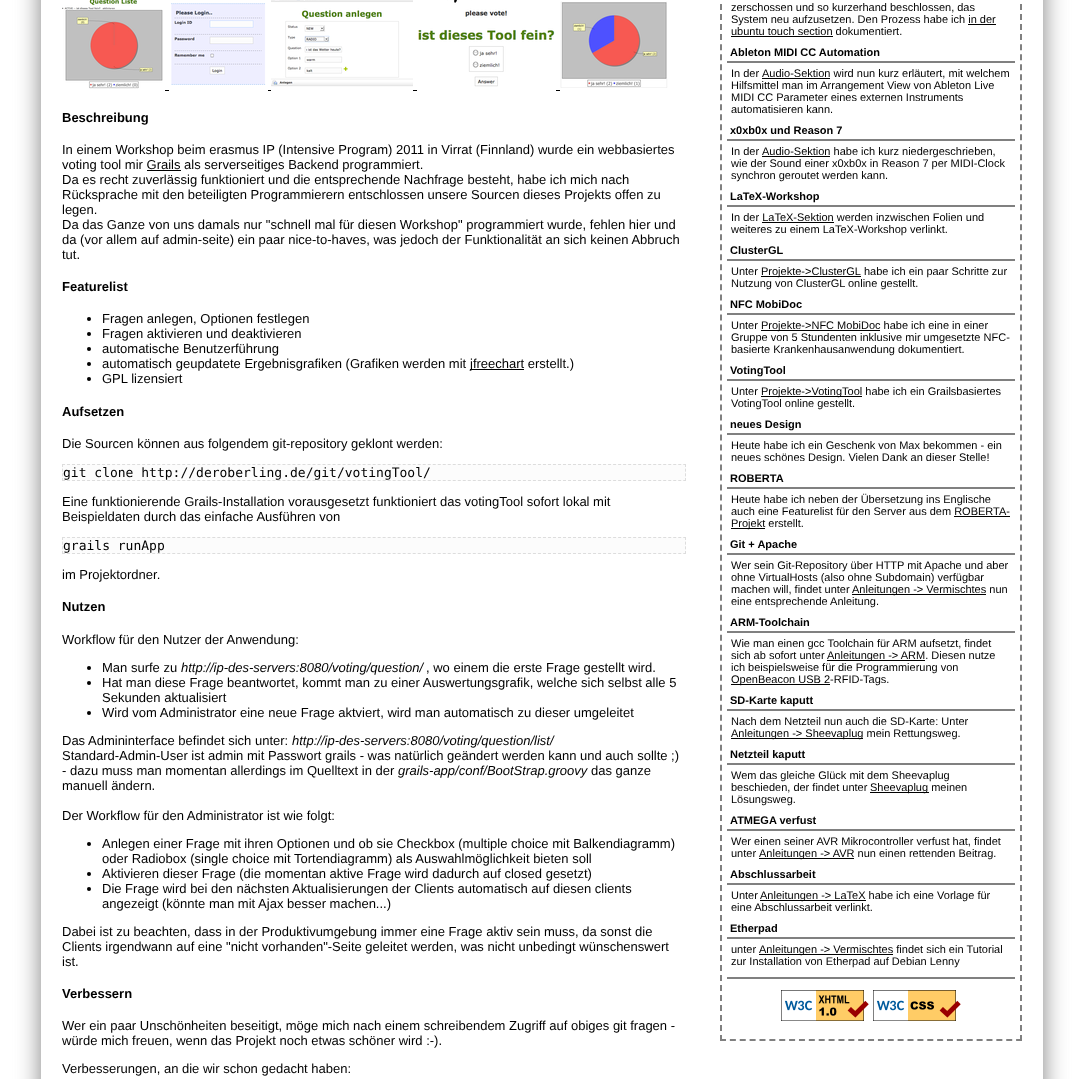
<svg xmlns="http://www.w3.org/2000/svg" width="1084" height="1079">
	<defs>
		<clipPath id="clip1"><path d="M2 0H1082V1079H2ZM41-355H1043V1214H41Z" clip-rule="evenodd" /></clipPath>
	</defs>
	<rect width="100%" height="100%" fill="#FFFFFF" />
	<g clip-path="url(#clip1)">
		<rect x="41" y="-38" width="1002" height="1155" fill="#808080" filter="blur(12.5px)" />
	</g>
	<image x="62" y="0" width="101" height="89" href="assets/img1.png" />
	<image x="171" y="3" width="95" height="82" href="assets/img2.png" />
	<image x="271" y="0" width="142" height="87" href="assets/img3.png" />
	<image x="418" y="0" width="137" height="87" href="assets/img4.png" />
	<image x="560" y="1" width="108" height="87" href="assets/img5.png" />
	<rect x="165" y="90" width="4" height="1" fill="#000000" />
	<rect x="268" y="90" width="3" height="1" fill="#000000" />
	<rect x="413" y="90" width="4" height="1" fill="#000000" />
	<rect x="556" y="90" width="4" height="1" fill="#000000" />
	<text x="62" y="122" font-family="Liberation Sans" font-size="13" font-weight="700" fill="#000000">Beschreibung</text>
	<g font-family="Liberation Sans" font-size="13" fill="#000000">
		<text x="62" y="154">In einem Workshop beim erasmus IP (Intensive Program) 2011 in Virrat (Finnland) wurde ein webbasiertes</text>
		<text x="62" y="169">voting tool mir Grails als serverseitiges Backend programmiert.</text>
	</g>
	<rect x="147" y="170" width="34" height="1" fill="#000000" />
	<g font-family="Liberation Sans" font-size="13" fill="#000000">
		<text x="62" y="184">Da es recht zuverlässig funktioniert und die entsprechende Nachfrage besteht, habe ich mich nach</text>
		<text x="62" y="199">Rücksprache mit den beteiligten Programmierern entschlossen unsere Sourcen dieses Projekts offen zu</text>
		<text x="62" y="214">legen.</text>
		<text x="62" y="229">Da das Ganze von uns damals nur "schnell mal für diesen Workshop" programmiert wurde, fehlen hier und</text>
		<text x="62" y="244">da (vor allem auf admin-seite) ein paar nice-to-haves, was jedoch der Funktionalität an sich keinen Abbruch</text>
		<text x="62" y="259">tut.</text>
	</g>
	<text x="62" y="291" font-family="Liberation Sans" font-size="13" font-weight="700" fill="#000000">Featurelist</text>
	<circle cx="89" cy="319" r="2" fill="#000000" />
	<text x="102" y="323" font-family="Liberation Sans" font-size="13" fill="#000000">Fragen anlegen, Optionen festlegen</text>
	<circle cx="89" cy="334" r="2" fill="#000000" />
	<text x="102" y="338" font-family="Liberation Sans" font-size="13" fill="#000000">Fragen aktivieren und deaktivieren</text>
	<circle cx="89" cy="349" r="2" fill="#000000" />
	<text x="102" y="353" font-family="Liberation Sans" font-size="13" fill="#000000">automatische Benutzerführung</text>
	<circle cx="89" cy="364" r="2" fill="#000000" />
	<text x="102" y="368" font-family="Liberation Sans" font-size="13" fill="#000000">automatisch geupdatete Ergebnisgrafiken (Grafiken werden mit</text>
	<rect x="470" y="369" width="54" height="1" fill="#000000" />
	<text x="470" y="368" font-family="Liberation Sans" font-size="13" fill="#000000">jfreechart erstellt.)</text>
	<circle cx="89" cy="379" r="2" fill="#000000" />
	<text x="102" y="383" font-family="Liberation Sans" font-size="13" fill="#000000">GPL lizensiert</text>
	<text x="62" y="416" font-family="Liberation Sans" font-size="13" font-weight="700" fill="#000000">Aufsetzen</text>
	<text x="62" y="448" font-family="Liberation Sans" font-size="13" fill="#000000">Die Sourcen können aus folgendem git-repository geklont werden:</text>
	<rect x="62" y="464" width="624" height="17" fill="#FCFCFC" />
	<path d="M62 464.5H686" fill="none" stroke="#DDDDDD" stroke-dasharray="3 2.01" />
	<path d="M685.5 464V481" fill="none" stroke="#DDDDDD" stroke-dasharray="3 1.67" />
	<path d="M62 480.5H686" fill="none" stroke="#DDDDDD" stroke-dasharray="3 2.01" />
	<path d="M62.5 464V481" fill="none" stroke="#DDDDDD" stroke-dasharray="3 1.67" />
	<text x="63" y="477" font-family="DejaVu Sans Mono" font-size="13" fill="#000000">git clone http://deroberling.de/git/votingTool/</text>
	<g font-family="Liberation Sans" font-size="13" fill="#000000">
		<text x="62" y="506">Eine funktionierende Grails-Installation vorausgesetzt funktioniert das votingTool sofort lokal mit</text>
		<text x="62" y="521">Beispieldaten durch das einfache Ausführen von</text>
	</g>
	<rect x="62" y="537" width="624" height="17" fill="#FCFCFC" />
	<path d="M62 537.5H686" fill="none" stroke="#DDDDDD" stroke-dasharray="3 2.01" />
	<path d="M685.5 537V554" fill="none" stroke="#DDDDDD" stroke-dasharray="3 1.67" />
	<path d="M62 553.5H686" fill="none" stroke="#DDDDDD" stroke-dasharray="3 2.01" />
	<path d="M62.5 537V554" fill="none" stroke="#DDDDDD" stroke-dasharray="3 1.67" />
	<text x="63" y="550" font-family="DejaVu Sans Mono" font-size="13" fill="#000000">grails runApp</text>
	<text x="62" y="579" font-family="Liberation Sans" font-size="13" fill="#000000">im Projektordner.</text>
	<text x="62" y="611" font-family="Liberation Sans" font-size="13" font-weight="700" fill="#000000">Nutzen</text>
	<text x="62" y="644" font-family="Liberation Sans" font-size="13" fill="#000000">Workflow für den Nutzer der Anwendung:</text>
	<circle cx="89" cy="668" r="2" fill="#000000" />
	<text x="102" y="672" font-family="Liberation Sans" font-size="13" fill="#000000">Man surfe zu</text>
	<text x="181" y="672" font-family="Liberation Sans" font-size="13" font-style="italic" fill="#000000">http://ip-des-servers:8080/voting/question/</text>
	<text x="426" y="672" font-family="Liberation Sans" font-size="13" fill="#000000">, wo einem die erste Frage gestellt wird.</text>
	<circle cx="89" cy="683" r="2" fill="#000000" />
	<g font-family="Liberation Sans" font-size="13" fill="#000000">
		<text x="102" y="687">Hat man diese Frage beantwortet, kommt man zu einer Auswertungsgrafik, welche sich selbst alle 5</text>
		<text x="102" y="702">Sekunden aktualisiert</text>
	</g>
	<circle cx="89" cy="713" r="2" fill="#000000" />
	<g font-family="Liberation Sans" font-size="13" fill="#000000">
		<text x="102" y="717">Wird vom Administrator eine neue Frage aktviert, wird man automatisch zu dieser umgeleitet</text>
		<text x="62" y="745">Das Admininterface befindet sich unter:</text>
	</g>
	<text x="292" y="745" font-family="Liberation Sans" font-size="13" font-style="italic" fill="#000000">http://ip-des-servers:8080/voting/question/list/</text>
	<g font-family="Liberation Sans" font-size="13" fill="#000000">
		<text x="62" y="760">Standard-Admin-User ist admin mit Passwort grails - was natürlich geändert werden kann und auch sollte ;)</text>
		<text x="62" y="775">- dazu muss man momentan allerdings im Quelltext in der</text>
	</g>
	<text x="398" y="775" font-family="Liberation Sans" font-size="13" font-style="italic" fill="#000000">grails-app/conf/BootStrap.groovy</text>
	<g font-family="Liberation Sans" font-size="13" fill="#000000">
		<text x="591" y="775">das ganze</text>
		<text x="62" y="790">manuell ändern.</text>
		<text x="62" y="820">Der Workflow für den Administrator ist wie folgt:</text>
	</g>
	<circle cx="89" cy="844" r="2" fill="#000000" />
	<g font-family="Liberation Sans" font-size="13" fill="#000000">
		<text x="102" y="848">Anlegen einer Frage mit ihren Optionen und ob sie Checkbox (multiple choice mit Balkendiagramm)</text>
		<text x="102" y="863">oder Radiobox (single choice mit Tortendiagramm) als Auswahlmöglichkeit bieten soll</text>
	</g>
	<circle cx="89" cy="874" r="2" fill="#000000" />
	<text x="102" y="878" font-family="Liberation Sans" font-size="13" fill="#000000">Aktivieren dieser Frage (die momentan aktive Frage wird dadurch auf closed gesetzt)</text>
	<circle cx="89" cy="889" r="2" fill="#000000" />
	<g font-family="Liberation Sans" font-size="13" fill="#000000">
		<text x="102" y="893">Die Frage wird bei den nächsten Aktualisierungen der Clients automatisch auf diesen clients</text>
		<text x="102" y="908">angezeigt (könnte man mit Ajax besser machen...)</text>
		<text x="62" y="936">Dabei ist zu beachten, dass in der Produktivumgebung immer eine Frage aktiv sein muss, da sonst die</text>
		<text x="62" y="951">Clients irgendwann auf eine "nicht vorhanden"-Seite geleitet werden, was nicht unbedingt wünschenswert</text>
		<text x="62" y="966">ist.</text>
	</g>
	<text x="62" y="998" font-family="Liberation Sans" font-size="13" font-weight="700" fill="#000000">Verbessern</text>
	<g font-family="Liberation Sans" font-size="13" fill="#000000">
		<text x="62" y="1030">Wer ein paar Unschönheiten beseitigt, möge mich nach einem schreibendem Zugriff auf obiges git fragen -</text>
		<text x="62" y="1045">würde mich freuen, wenn das Projekt noch etwas schöner wird :-).</text>
		<text x="62" y="1073">Verbesserungen, an die wir schon gedacht haben:</text>
	</g>
	<path d="M1021-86V1041" fill="none" stroke="#808080" stroke-width="2" stroke-dasharray="6 4.01" />
	<path d="M720 1040H1022" fill="none" stroke="#808080" stroke-width="2" stroke-dasharray="6 3.87" />
	<path d="M721-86V1041" fill="none" stroke="#808080" stroke-width="2" stroke-dasharray="6 4.01" />
	<g font-family="Liberation Sans" font-size="11" fill="#000000">
		<text x="731" y="11">zerschossen und so kurzerhand beschlossen, das</text>
		<text x="731" y="23">System neu aufzusetzen. Den Prozess habe ich in der</text>
		<text x="731" y="35">ubuntu touch section dokumentiert.</text>
	</g>
	<rect x="968" y="24" width="28" height="1" fill="#000000" />
	<rect x="731" y="36" width="102" height="1" fill="#000000" />
	<rect x="727" y="61" width="288" height="2" fill="#808080" />
	<text x="730" y="56" font-family="Liberation Sans" font-size="11" font-weight="700" fill="#000000">Ableton MIDI CC Automation</text>
	<text x="731" y="77" font-family="Liberation Sans" font-size="11" fill="#000000">In der</text>
	<rect x="762" y="78" width="68" height="1" fill="#000000" />
	<g font-family="Liberation Sans" font-size="11" fill="#000000">
		<text x="762" y="77">Audio-Sektion wird nun kurz erläutert, mit welchem</text>
		<text x="731" y="89">Hilfsmittel man im Arrangement View von Ableton Live</text>
		<text x="731" y="101">MIDI CC Parameter eines externen Instruments</text>
		<text x="731" y="113">automatisieren kann.</text>
	</g>
	<rect x="727" y="139" width="288" height="2" fill="#808080" />
	<text x="730" y="134" font-family="Liberation Sans" font-size="11" font-weight="700" fill="#000000">x0xb0x und Reason 7</text>
	<text x="731" y="155" font-family="Liberation Sans" font-size="11" fill="#000000">In der</text>
	<rect x="762" y="156" width="68" height="1" fill="#000000" />
	<g font-family="Liberation Sans" font-size="11" fill="#000000">
		<text x="762" y="155">Audio-Sektion habe ich kurz niedergeschrieben,</text>
		<text x="731" y="167">wie der Sound einer x0xb0x in Reason 7 per MIDI-Clock</text>
		<text x="731" y="179">synchron geroutet werden kann.</text>
	</g>
	<rect x="727" y="205" width="288" height="2" fill="#808080" />
	<text x="730" y="200" font-family="Liberation Sans" font-size="11" font-weight="700" fill="#000000">LaTeX-Workshop</text>
	<text x="731" y="221" font-family="Liberation Sans" font-size="11" fill="#000000">In der LaTeX-Sektion werden inzwischen Folien und</text>
	<rect x="762" y="222" width="72" height="1" fill="#000000" />
	<text x="731" y="233" font-family="Liberation Sans" font-size="11" fill="#000000">weiteres zu einem LaTeX-Workshop verlinkt.</text>
	<rect x="727" y="259" width="288" height="2" fill="#808080" />
	<text x="730" y="254" font-family="Liberation Sans" font-size="11" font-weight="700" fill="#000000">ClusterGL</text>
	<text x="731" y="275" font-family="Liberation Sans" font-size="11" fill="#000000">Unter</text>
	<rect x="761" y="276" width="100" height="1" fill="#000000" />
	<g font-family="Liberation Sans" font-size="11" fill="#000000">
		<text x="761" y="275">Projekte-&gt;ClusterGL</text>
		<text x="864" y="275">habe ich ein paar Schritte zur</text>
		<text x="731" y="287">Nutzung von ClusterGL online gestellt.</text>
	</g>
	<rect x="727" y="313" width="288" height="2" fill="#808080" />
	<text x="730" y="308" font-family="Liberation Sans" font-size="11" font-weight="700" fill="#000000">NFC MobiDoc</text>
	<text x="731" y="329" font-family="Liberation Sans" font-size="11" fill="#000000">Unter</text>
	<rect x="761" y="330" width="119" height="1" fill="#000000" />
	<g font-family="Liberation Sans" font-size="11" fill="#000000">
		<text x="761" y="329">Projekte-&gt;NFC MobiDoc habe ich eine in einer</text>
		<text x="731" y="341">Gruppe von 5 Stundenten inklusive mir umgesetzte NFC-</text>
		<text x="731" y="353">basierte Krankenhausanwendung dokumentiert.</text>
	</g>
	<rect x="727" y="379" width="288" height="2" fill="#808080" />
	<text x="730" y="374" font-family="Liberation Sans" font-size="11" font-weight="700" fill="#000000">VotingTool</text>
	<text x="731" y="395" font-family="Liberation Sans" font-size="11" fill="#000000">Unter</text>
	<rect x="761" y="396" width="101" height="1" fill="#000000" />
	<g font-family="Liberation Sans" font-size="11" fill="#000000">
		<text x="761" y="395">Projekte-&gt;VotingTool habe ich ein Grailsbasiertes</text>
		<text x="731" y="407">VotingTool online gestellt.</text>
	</g>
	<rect x="727" y="433" width="288" height="2" fill="#808080" />
	<text x="730" y="428" font-family="Liberation Sans" font-size="11" font-weight="700" fill="#000000">neues Design</text>
	<g font-family="Liberation Sans" font-size="11" fill="#000000">
		<text x="731" y="449">Heute habe ich ein Geschenk von Max bekommen - ein</text>
		<text x="731" y="461">neues schönes Design. Vielen Dank an dieser Stelle!</text>
	</g>
	<rect x="727" y="487" width="288" height="2" fill="#808080" />
	<text x="730" y="482" font-family="Liberation Sans" font-size="11" font-weight="700" fill="#000000">ROBERTA</text>
	<g font-family="Liberation Sans" font-size="11" fill="#000000">
		<text x="731" y="503">Heute habe ich neben der Übersetzung ins Englische</text>
		<text x="731" y="515">auch eine Featurelist für den Server aus dem ROBERTA-</text>
	</g>
	<rect x="731" y="528" width="34" height="1" fill="#000000" />
	<text x="731" y="527" font-family="Liberation Sans" font-size="11" fill="#000000">Projekt erstellt.</text>
	<rect x="954" y="516" width="56" height="1" fill="#000000" />
	<rect x="727" y="553" width="288" height="2" fill="#808080" />
	<text x="730" y="548" font-family="Liberation Sans" font-size="11" font-weight="700" fill="#000000">Git + Apache</text>
	<g font-family="Liberation Sans" font-size="11" fill="#000000">
		<text x="731" y="569">Wer sein Git-Repository über HTTP mit Apache und aber</text>
		<text x="731" y="581">ohne VirtualHosts (also ohne Subdomain) verfügbar</text>
		<text x="731" y="593">machen will, findet unter</text>
	</g>
	<rect x="852" y="594" width="134" height="1" fill="#000000" />
	<g font-family="Liberation Sans" font-size="11" fill="#000000">
		<text x="852" y="593">Anleitungen -&gt; Vermischtes nun</text>
		<text x="731" y="605">eine entsprechende Anleitung.</text>
	</g>
	<rect x="727" y="631" width="288" height="2" fill="#808080" />
	<text x="730" y="626" font-family="Liberation Sans" font-size="11" font-weight="700" fill="#000000">ARM-Toolchain</text>
	<g font-family="Liberation Sans" font-size="11" fill="#000000">
		<text x="731" y="647">Wie man einen gcc Toolchain für ARM aufsetzt, findet</text>
		<text x="731" y="659">sich ab sofort unter</text>
	</g>
	<rect x="827" y="660" width="98" height="1" fill="#000000" />
	<g font-family="Liberation Sans" font-size="11" fill="#000000">
		<text x="827" y="659">Anleitungen -&gt; ARM. Diesen nutze</text>
		<text x="731" y="671">ich beispielsweise für die Programmierung von</text>
	</g>
	<rect x="731" y="684" width="99" height="1" fill="#000000" />
	<text x="731" y="683" font-family="Liberation Sans" font-size="11" fill="#000000">OpenBeacon USB 2-RFID-Tags.</text>
	<rect x="727" y="709" width="288" height="2" fill="#808080" />
	<text x="730" y="704" font-family="Liberation Sans" font-size="11" font-weight="700" fill="#000000">SD-Karte kaputt</text>
	<text x="731" y="725" font-family="Liberation Sans" font-size="11" fill="#000000">Nach dem Netzteil nun auch die SD-Karte: Unter</text>
	<rect x="731" y="738" width="132" height="1" fill="#000000" />
	<text x="731" y="737" font-family="Liberation Sans" font-size="11" fill="#000000">Anleitungen -&gt; Sheevaplug mein Rettungsweg.</text>
	<rect x="727" y="763" width="288" height="2" fill="#808080" />
	<text x="730" y="758" font-family="Liberation Sans" font-size="11" font-weight="700" fill="#000000">Netzteil kaputt</text>
	<g font-family="Liberation Sans" font-size="11" fill="#000000">
		<text x="731" y="779">Wem das gleiche Glück mit dem Sheevaplug</text>
		<text x="731" y="791">beschieden, der findet unter</text>
	</g>
	<rect x="870" y="792" width="59" height="1" fill="#000000" />
	<g font-family="Liberation Sans" font-size="11" fill="#000000">
		<text x="870" y="791">Sheevaplug meinen</text>
		<text x="731" y="803">Lösungsweg.</text>
	</g>
	<rect x="727" y="829" width="288" height="2" fill="#808080" />
	<text x="730" y="824" font-family="Liberation Sans" font-size="11" font-weight="700" fill="#000000">ATMEGA verfust</text>
	<g font-family="Liberation Sans" font-size="11" fill="#000000">
		<text x="731" y="845">Wer einen seiner AVR Mikrocontroller verfust hat, findet</text>
		<text x="731" y="857">unter</text>
	</g>
	<rect x="759" y="858" width="95" height="1" fill="#000000" />
	<text x="759" y="857" font-family="Liberation Sans" font-size="11" fill="#000000">Anleitungen -&gt; AVR nun einen rettenden Beitrag.</text>
	<rect x="727" y="883" width="288" height="2" fill="#808080" />
	<text x="730" y="878" font-family="Liberation Sans" font-size="11" font-weight="700" fill="#000000">Abschlussarbeit</text>
	<text x="731" y="899" font-family="Liberation Sans" font-size="11" fill="#000000">Unter</text>
	<rect x="760" y="900" width="106" height="1" fill="#000000" />
	<g font-family="Liberation Sans" font-size="11" fill="#000000">
		<text x="760" y="899">Anleitungen -&gt; LaTeX habe ich eine Vorlage für</text>
		<text x="731" y="911">eine Abschlussarbeit verlinkt.</text>
	</g>
	<rect x="727" y="937" width="288" height="2" fill="#808080" />
	<text x="730" y="932" font-family="Liberation Sans" font-size="11" font-weight="700" fill="#000000">Etherpad</text>
	<text x="731" y="953" font-family="Liberation Sans" font-size="11" fill="#000000">unter</text>
	<rect x="759" y="954" width="134" height="1" fill="#000000" />
	<g font-family="Liberation Sans" font-size="11" fill="#000000">
		<text x="759" y="953">Anleitungen -&gt; Vermischtes findet sich ein Tutorial</text>
		<text x="731" y="965">zur Installation von Etherpad auf Debian Lenny</text>
	</g>
	<rect x="727" y="977" width="288" height="2" fill="#808080" />
	<image x="781" y="990" width="88" height="31" href="assets/img6.png" />
	<image x="873" y="990" width="88" height="31" href="assets/img7.png" />
</svg>
